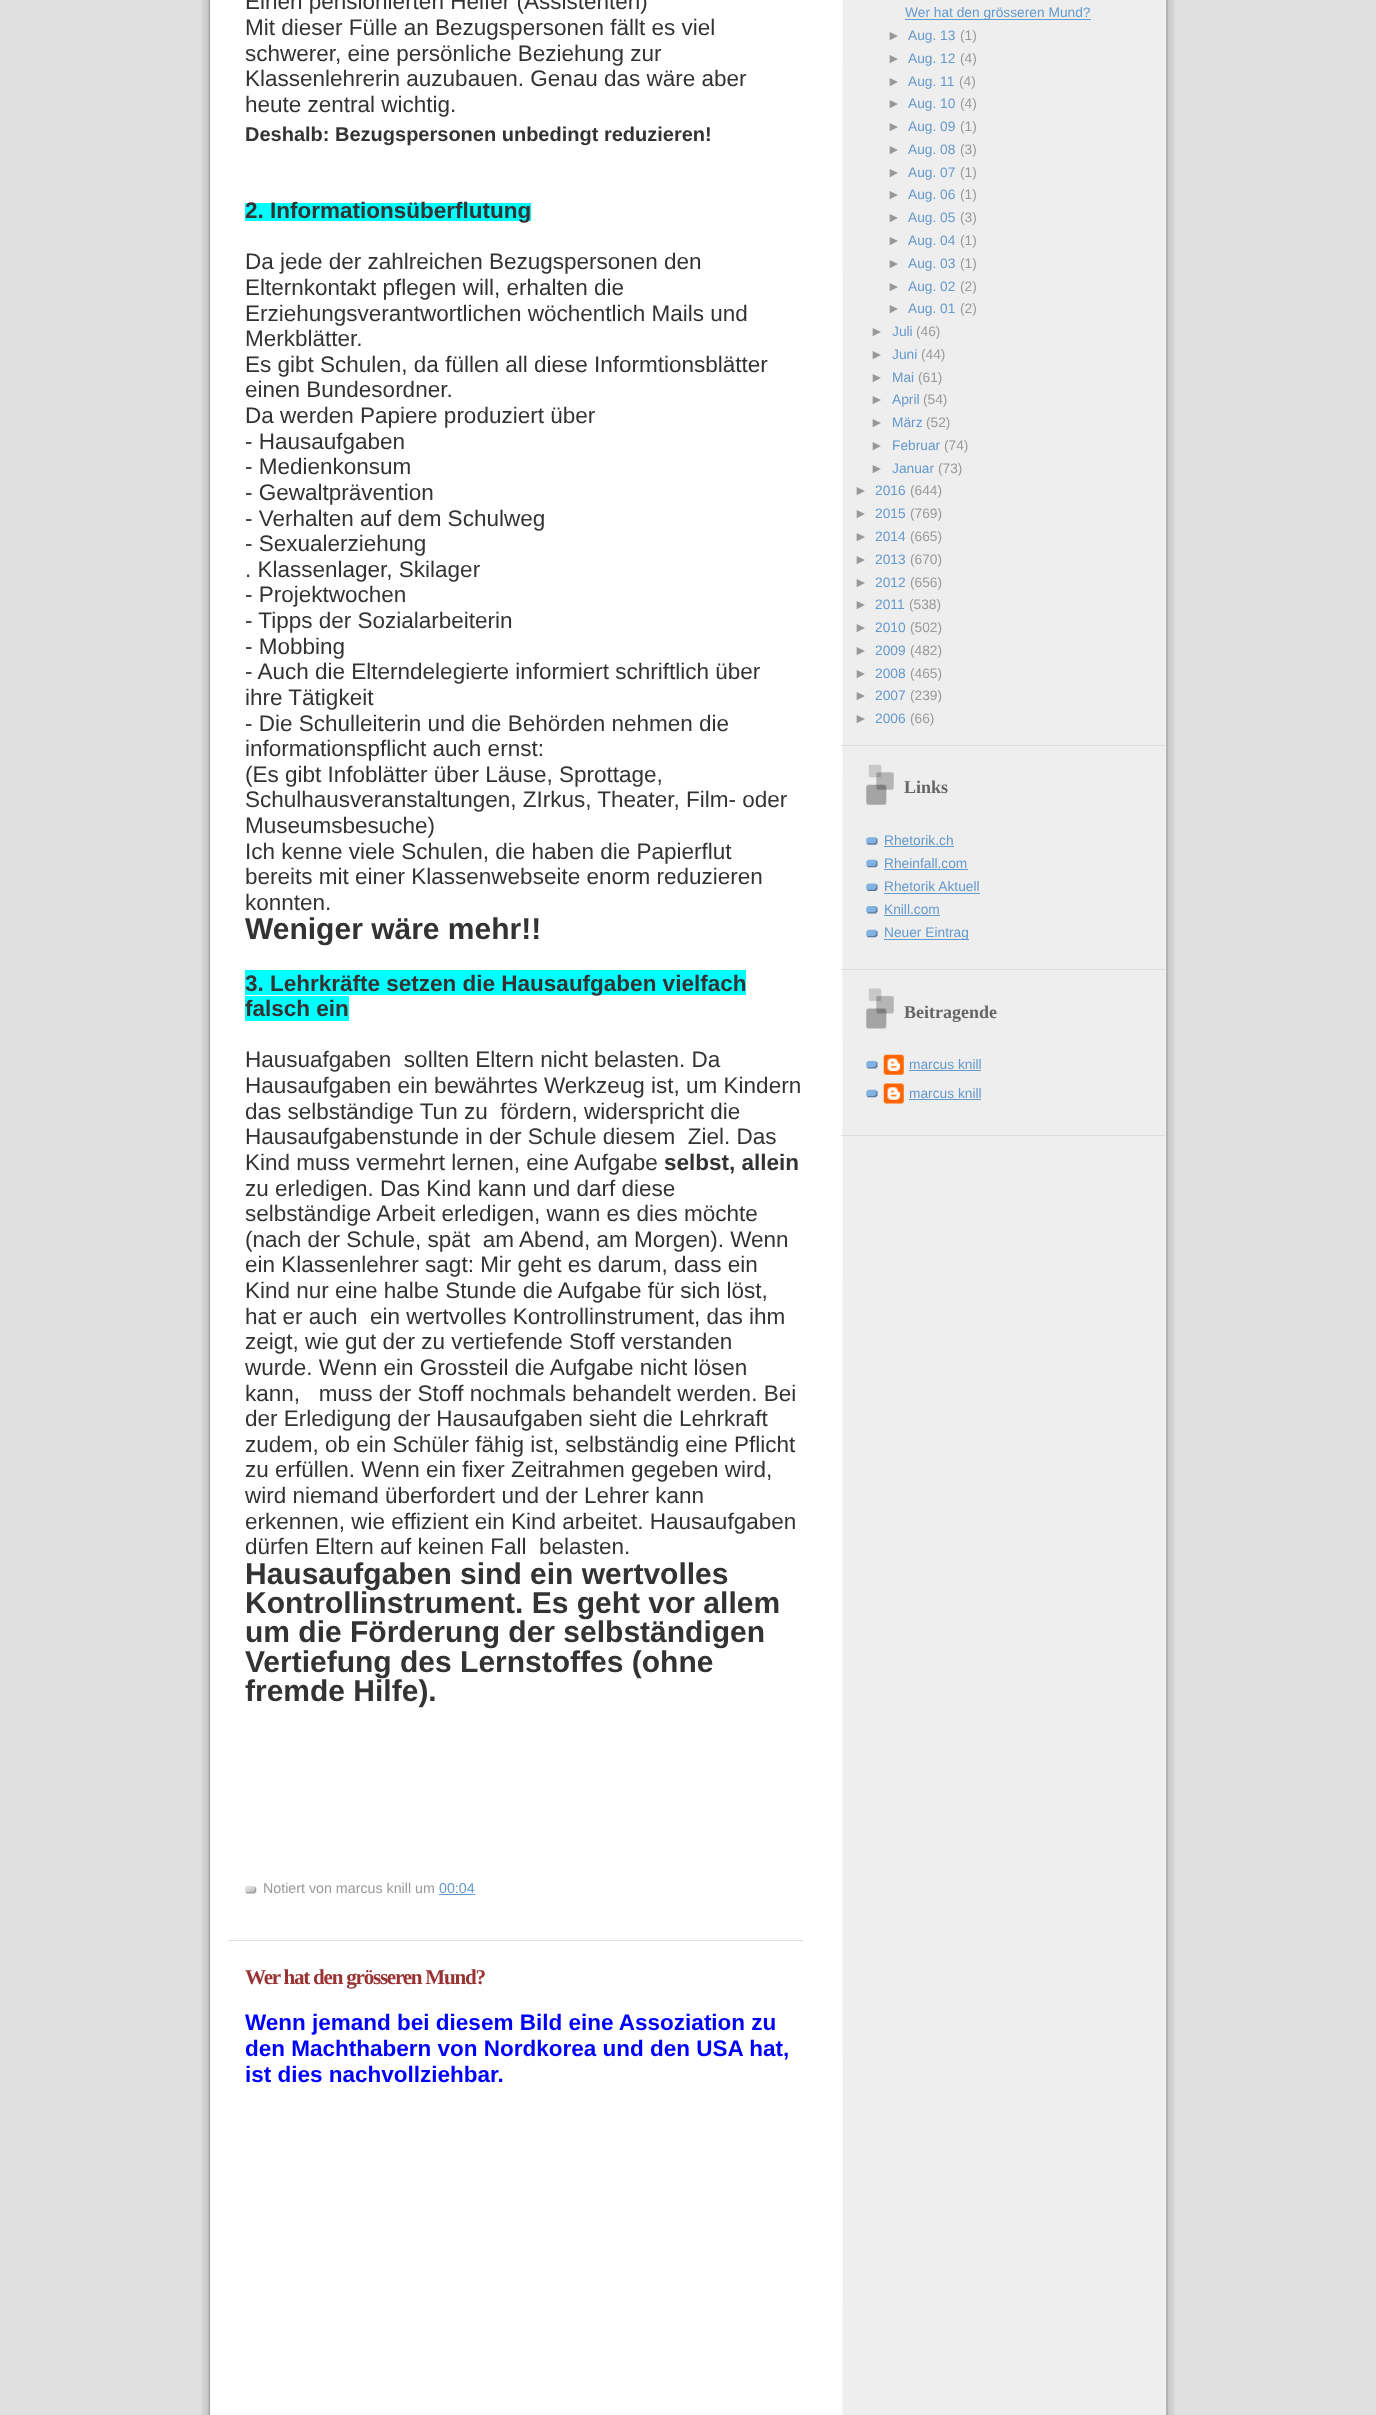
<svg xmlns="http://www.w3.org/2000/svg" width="1376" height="2415">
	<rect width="100%" height="100%" fill="#E0E0E0" />
	<image x="201" y="0" width="974" height="2415" href="assets/img1.png" />
	<rect x="228" y="1940" width="575" height="1" fill="#DDDDDD" />
	<g font-family="Liberation Sans" font-size="22.5" fill="#333333">
		<text x="245" y="9">Einen pensionierten Helfer (Assistenten)</text>
		<text x="245" y="35">Mit dieser Fülle an Bezugspersonen fällt es viel</text>
		<text x="245" y="61">schwerer, eine persönliche Beziehung zur</text>
		<text x="245" y="86">Klassenlehrerin auzubauen. Genau das wäre aber</text>
		<text x="245" y="112">heute zentral wichtig.</text>
	</g>
	<text x="245" y="141" font-family="Liberation Sans" font-size="20" font-weight="700" fill="#333333">Deshalb: Bezugspersonen unbedingt reduzieren!</text>
	<rect x="245" y="203" width="286" height="18" fill="#00FFFF" />
	<text x="245" y="218" font-family="Liberation Sans" font-size="22.5" font-weight="700" fill="#333333">2. Informationsüberflutung</text>
	<g font-family="Liberation Sans" font-size="22.5" fill="#333333">
		<text x="245" y="269">Da jede der zahlreichen Bezugspersonen den</text>
		<text x="245" y="295">Elternkontakt pflegen will, erhalten die</text>
		<text x="245" y="321">Erziehungsverantwortlichen wöchentlich Mails und</text>
		<text x="245" y="346">Merkblätter.</text>
		<text x="245" y="372">Es gibt Schulen, da füllen all diese Informtionsblätter</text>
		<text x="245" y="397">einen Bundesordner.</text>
		<text x="245" y="423">Da werden Papiere produziert über</text>
		<text x="245" y="449">- Hausaufgaben</text>
		<text x="245" y="474">- Medienkonsum</text>
		<text x="245" y="500">- Gewaltprävention</text>
		<text x="245" y="526">- Verhalten auf dem Schulweg</text>
		<text x="245" y="551">- Sexualerziehung</text>
		<text x="245" y="577">. Klassenlager, Skilager</text>
		<text x="245" y="602">- Projektwochen</text>
		<text x="245" y="628">- Tipps der Sozialarbeiterin</text>
		<text x="245" y="654">- Mobbing</text>
		<text x="245" y="679">- Auch die Elterndelegierte informiert schriftlich über</text>
		<text x="245" y="705">ihre Tätigkeit</text>
		<text x="245" y="731">- Die Schulleiterin und die Behörden nehmen die</text>
		<text x="245" y="756">informationspflicht auch ernst:</text>
		<text x="245" y="782">(Es gibt Infoblätter über Läuse, Sprottage,</text>
		<text x="245" y="807">Schulhausveranstaltungen, ZIrkus, Theater, Film- oder</text>
		<text x="245" y="833">Museumsbesuche)</text>
		<text x="245" y="859">Ich kenne viele Schulen, die haben die Papierflut</text>
		<text x="245" y="884">bereits mit einer Klassenwebseite enorm reduzieren</text>
		<text x="245" y="910">konnten.</text>
	</g>
	<text x="245" y="939" font-family="Liberation Sans" font-size="30" font-weight="700" fill="#333333">Weniger wäre mehr!!</text>
	<rect x="245" y="970" width="501" height="25" fill="#00FFFF" />
	<text x="245" y="991" font-family="Liberation Sans" font-size="22.5" font-weight="700" fill="#333333">3. Lehrkräfte setzen die Hausaufgaben vielfach</text>
	<rect x="245" y="996" width="104" height="25" fill="#00FFFF" />
	<text x="245" y="1016" font-family="Liberation Sans" font-size="22.5" font-weight="700" fill="#333333">falsch ein</text>
	<g font-family="Liberation Sans" font-size="22.5" fill="#333333">
		<text x="245" y="1067" xml:space="preserve">Hausuafgaben  sollten Eltern nicht belasten. Da</text>
		<text x="245" y="1093">Hausaufgaben ein bewährtes Werkzeug ist, um Kindern</text>
		<text x="245" y="1119" xml:space="preserve">das selbständige Tun zu  fördern, widerspricht die</text>
		<text x="245" y="1144" xml:space="preserve">Hausaufgabenstunde in der Schule diesem  Ziel. Das</text>
		<text x="245" y="1170">Kind muss vermehrt lernen, eine Aufgabe</text>
	</g>
	<text x="664" y="1170" font-family="Liberation Sans" font-size="22.5" font-weight="700" fill="#333333">selbst, allein</text>
	<g font-family="Liberation Sans" font-size="22.5" fill="#333333">
		<text x="245" y="1196">zu erledigen. Das Kind kann und darf diese</text>
		<text x="245" y="1221">selbständige Arbeit erledigen, wann es dies möchte</text>
		<text x="245" y="1247" xml:space="preserve">(nach der Schule, spät  am Abend, am Morgen). Wenn</text>
		<text x="245" y="1272">ein Klassenlehrer sagt: Mir geht es darum, dass ein</text>
		<text x="245" y="1298">Kind nur eine halbe Stunde die Aufgabe für sich löst,</text>
		<text x="245" y="1324" xml:space="preserve">hat er auch  ein wertvolles Kontrollinstrument, das ihm</text>
		<text x="245" y="1349">zeigt, wie gut der zu vertiefende Stoff verstanden</text>
		<text x="245" y="1375">wurde. Wenn ein Grossteil die Aufgabe nicht lösen</text>
		<text x="245" y="1401" xml:space="preserve">kann,   muss der Stoff nochmals behandelt werden. Bei</text>
		<text x="245" y="1426">der Erledigung der Hausaufgaben sieht die Lehrkraft</text>
		<text x="245" y="1452">zudem, ob ein Schüler fähig ist, selbständig eine Pflicht</text>
		<text x="245" y="1477">zu erfüllen. Wenn ein fixer Zeitrahmen gegeben wird,</text>
		<text x="245" y="1503">wird niemand überfordert und der Lehrer kann</text>
		<text x="245" y="1529">erkennen, wie effizient ein Kind arbeitet. Hausaufgaben</text>
		<text x="245" y="1554" xml:space="preserve">dürfen Eltern auf keinen Fall  belasten.</text>
	</g>
	<g font-family="Liberation Sans" font-size="30" font-weight="700" fill="#333333">
		<text x="245" y="1584">Hausaufgaben sind ein wertvolles</text>
		<text x="245" y="1613">Kontrollinstrument. Es geht vor allem</text>
		<text x="245" y="1642">um die Förderung der selbständigen</text>
		<text x="245" y="1672">Vertiefung des Lernstoffes (ohne</text>
		<text x="245" y="1701">fremde Hilfe).</text>
	</g>
	<image x="245" y="1886" width="12" height="8" href="assets/img2.png" />
	<text x="263" y="1893" font-family="Liberation Sans" font-size="14.25" fill="#999999">Notiert von marcus knill um</text>
	<text x="439" y="1893" font-family="Liberation Sans" font-size="14.25" fill="#6699CC">00:04</text>
	<rect x="439" y="1894" width="36" height="1" fill="#6699CC" />
	<text x="245" y="1984" font-family="Liberation Serif" font-size="21.1" font-weight="700" letter-spacing="-1.25" fill="#993333">Wer hat den grösseren Mund?</text>
	<g font-family="Liberation Sans" font-size="22.5" font-weight="700" fill="#0000FF">
		<text x="245" y="2030">Wenn jemand bei diesem Bild eine Assoziation zu</text>
		<text x="245" y="2056">den Machthabern von Nordkorea und den USA hat,</text>
		<text x="245" y="2082">ist dies nachvollziehbar.</text>
	</g>
	<rect x="841" y="745" width="324" height="1" fill="#DDDDDD" />
	<rect x="905" y="19" width="186" height="1" fill="#6699CC" />
	<text x="905" y="17" font-family="Liberation Sans" font-size="13.75" fill="#6699CC">Wer hat den grösseren Mund?</text>
	<text x="887" y="40" font-family="Liberation Sans" font-size="13.75" fill="#999999">►</text>
	<text x="908" y="40" font-family="Liberation Sans" font-size="13.75" fill="#6699CC">Aug. 13</text>
	<g font-family="Liberation Sans" font-size="13.75" fill="#999999">
		<text x="960" y="40">(1)</text>
		<text x="887" y="63">►</text>
	</g>
	<text x="908" y="63" font-family="Liberation Sans" font-size="13.75" fill="#6699CC">Aug. 12</text>
	<g font-family="Liberation Sans" font-size="13.75" fill="#999999">
		<text x="960" y="63">(4)</text>
		<text x="887" y="86">►</text>
	</g>
	<text x="908" y="86" font-family="Liberation Sans" font-size="13.75" fill="#6699CC">Aug. 11</text>
	<g font-family="Liberation Sans" font-size="13.75" fill="#999999">
		<text x="959" y="86">(4)</text>
		<text x="887" y="108">►</text>
	</g>
	<text x="908" y="108" font-family="Liberation Sans" font-size="13.75" fill="#6699CC">Aug. 10</text>
	<g font-family="Liberation Sans" font-size="13.75" fill="#999999">
		<text x="960" y="108">(4)</text>
		<text x="887" y="131">►</text>
	</g>
	<text x="908" y="131" font-family="Liberation Sans" font-size="13.75" fill="#6699CC">Aug. 09</text>
	<g font-family="Liberation Sans" font-size="13.75" fill="#999999">
		<text x="960" y="131">(1)</text>
		<text x="887" y="154">►</text>
	</g>
	<text x="908" y="154" font-family="Liberation Sans" font-size="13.75" fill="#6699CC">Aug. 08</text>
	<g font-family="Liberation Sans" font-size="13.75" fill="#999999">
		<text x="960" y="154">(3)</text>
		<text x="887" y="177">►</text>
	</g>
	<text x="908" y="177" font-family="Liberation Sans" font-size="13.75" fill="#6699CC">Aug. 07</text>
	<g font-family="Liberation Sans" font-size="13.75" fill="#999999">
		<text x="960" y="177">(1)</text>
		<text x="887" y="199">►</text>
	</g>
	<text x="908" y="199" font-family="Liberation Sans" font-size="13.75" fill="#6699CC">Aug. 06</text>
	<g font-family="Liberation Sans" font-size="13.75" fill="#999999">
		<text x="960" y="199">(1)</text>
		<text x="887" y="222">►</text>
	</g>
	<text x="908" y="222" font-family="Liberation Sans" font-size="13.75" fill="#6699CC">Aug. 05</text>
	<g font-family="Liberation Sans" font-size="13.75" fill="#999999">
		<text x="960" y="222">(3)</text>
		<text x="887" y="245">►</text>
	</g>
	<text x="908" y="245" font-family="Liberation Sans" font-size="13.75" fill="#6699CC">Aug. 04</text>
	<g font-family="Liberation Sans" font-size="13.75" fill="#999999">
		<text x="960" y="245">(1)</text>
		<text x="887" y="268">►</text>
	</g>
	<text x="908" y="268" font-family="Liberation Sans" font-size="13.75" fill="#6699CC">Aug. 03</text>
	<g font-family="Liberation Sans" font-size="13.75" fill="#999999">
		<text x="960" y="268">(1)</text>
		<text x="887" y="291">►</text>
	</g>
	<text x="908" y="291" font-family="Liberation Sans" font-size="13.75" fill="#6699CC">Aug. 02</text>
	<g font-family="Liberation Sans" font-size="13.75" fill="#999999">
		<text x="960" y="291">(2)</text>
		<text x="887" y="313">►</text>
	</g>
	<text x="908" y="313" font-family="Liberation Sans" font-size="13.75" fill="#6699CC">Aug. 01</text>
	<g font-family="Liberation Sans" font-size="13.75" fill="#999999">
		<text x="960" y="313">(2)</text>
		<text x="870" y="336">►</text>
	</g>
	<text x="892" y="336" font-family="Liberation Sans" font-size="13.75" fill="#6699CC">Juli</text>
	<g font-family="Liberation Sans" font-size="13.75" fill="#999999">
		<text x="916" y="336">(46)</text>
		<text x="870" y="359">►</text>
	</g>
	<text x="892" y="359" font-family="Liberation Sans" font-size="13.75" fill="#6699CC">Juni</text>
	<g font-family="Liberation Sans" font-size="13.75" fill="#999999">
		<text x="921" y="359">(44)</text>
		<text x="870" y="382">►</text>
	</g>
	<text x="892" y="382" font-family="Liberation Sans" font-size="13.75" fill="#6699CC">Mai</text>
	<g font-family="Liberation Sans" font-size="13.75" fill="#999999">
		<text x="918" y="382">(61)</text>
		<text x="870" y="404">►</text>
	</g>
	<text x="892" y="404" font-family="Liberation Sans" font-size="13.75" fill="#6699CC">April</text>
	<g font-family="Liberation Sans" font-size="13.75" fill="#999999">
		<text x="923" y="404">(54)</text>
		<text x="870" y="427">►</text>
	</g>
	<text x="892" y="427" font-family="Liberation Sans" font-size="13.75" fill="#6699CC">März</text>
	<g font-family="Liberation Sans" font-size="13.75" fill="#999999">
		<text x="926" y="427">(52)</text>
		<text x="870" y="450">►</text>
	</g>
	<text x="892" y="450" font-family="Liberation Sans" font-size="13.75" fill="#6699CC">Februar</text>
	<g font-family="Liberation Sans" font-size="13.75" fill="#999999">
		<text x="944" y="450">(74)</text>
		<text x="870" y="473">►</text>
	</g>
	<text x="892" y="473" font-family="Liberation Sans" font-size="13.75" fill="#6699CC">Januar</text>
	<g font-family="Liberation Sans" font-size="13.75" fill="#999999">
		<text x="938" y="473">(73)</text>
		<text x="854" y="495">►</text>
	</g>
	<text x="875" y="495" font-family="Liberation Sans" font-size="13.75" fill="#6699CC">2016</text>
	<g font-family="Liberation Sans" font-size="13.75" fill="#999999">
		<text x="910" y="495">(644)</text>
		<text x="854" y="518">►</text>
	</g>
	<text x="875" y="518" font-family="Liberation Sans" font-size="13.75" fill="#6699CC">2015</text>
	<g font-family="Liberation Sans" font-size="13.75" fill="#999999">
		<text x="910" y="518">(769)</text>
		<text x="854" y="541">►</text>
	</g>
	<text x="875" y="541" font-family="Liberation Sans" font-size="13.75" fill="#6699CC">2014</text>
	<g font-family="Liberation Sans" font-size="13.75" fill="#999999">
		<text x="910" y="541">(665)</text>
		<text x="854" y="564">►</text>
	</g>
	<text x="875" y="564" font-family="Liberation Sans" font-size="13.75" fill="#6699CC">2013</text>
	<g font-family="Liberation Sans" font-size="13.75" fill="#999999">
		<text x="910" y="564">(670)</text>
		<text x="854" y="587">►</text>
	</g>
	<text x="875" y="587" font-family="Liberation Sans" font-size="13.75" fill="#6699CC">2012</text>
	<g font-family="Liberation Sans" font-size="13.75" fill="#999999">
		<text x="910" y="587">(656)</text>
		<text x="854" y="609">►</text>
	</g>
	<text x="875" y="609" font-family="Liberation Sans" font-size="13.75" fill="#6699CC">2011</text>
	<g font-family="Liberation Sans" font-size="13.75" fill="#999999">
		<text x="909" y="609">(538)</text>
		<text x="854" y="632">►</text>
	</g>
	<text x="875" y="632" font-family="Liberation Sans" font-size="13.75" fill="#6699CC">2010</text>
	<g font-family="Liberation Sans" font-size="13.75" fill="#999999">
		<text x="910" y="632">(502)</text>
		<text x="854" y="655">►</text>
	</g>
	<text x="875" y="655" font-family="Liberation Sans" font-size="13.75" fill="#6699CC">2009</text>
	<g font-family="Liberation Sans" font-size="13.75" fill="#999999">
		<text x="910" y="655">(482)</text>
		<text x="854" y="678">►</text>
	</g>
	<text x="875" y="678" font-family="Liberation Sans" font-size="13.75" fill="#6699CC">2008</text>
	<g font-family="Liberation Sans" font-size="13.75" fill="#999999">
		<text x="910" y="678">(465)</text>
		<text x="854" y="700">►</text>
	</g>
	<text x="875" y="700" font-family="Liberation Sans" font-size="13.75" fill="#6699CC">2007</text>
	<g font-family="Liberation Sans" font-size="13.75" fill="#999999">
		<text x="910" y="700">(239)</text>
		<text x="854" y="723">►</text>
	</g>
	<text x="875" y="723" font-family="Liberation Sans" font-size="13.75" fill="#6699CC">2006</text>
	<text x="910" y="723" font-family="Liberation Sans" font-size="13.75" fill="#999999">(66)</text>
	<rect x="841" y="969" width="324" height="1" fill="#DDDDDD" />
	<image x="866" y="764" width="28" height="41" href="assets/img3.png" />
	<text x="904" y="793" font-family="Liberation Serif" font-size="18" font-weight="700" fill="#666666">Links</text>
	<image x="866" y="837" width="12" height="8" href="assets/img4.png" />
	<text x="884" y="845" font-family="Liberation Sans" font-size="13.75" fill="#6699CC">Rhetorik.ch</text>
	<rect x="884" y="846" width="70" height="1" fill="#6699CC" />
	<image x="866" y="859" width="12" height="9" href="assets/img5.png" />
	<text x="884" y="868" font-family="Liberation Sans" font-size="13.75" fill="#6699CC">Rheinfall.com</text>
	<rect x="884" y="869" width="84" height="1" fill="#6699CC" />
	<image x="866" y="883" width="12" height="8" href="assets/img6.png" />
	<text x="884" y="891" font-family="Liberation Sans" font-size="13.75" fill="#6699CC">Rhetorik Aktuell</text>
	<rect x="884" y="893" width="96" height="1" fill="#6699CC" />
	<image x="866" y="906" width="12" height="8" href="assets/img7.png" />
	<text x="884" y="914" font-family="Liberation Sans" font-size="13.75" fill="#6699CC">Knill.com</text>
	<rect x="884" y="915" width="56" height="1" fill="#6699CC" />
	<image x="866" y="929" width="12" height="9" href="assets/img5.png" />
	<rect x="884" y="939" width="85" height="1" fill="#6699CC" />
	<text x="884" y="937" font-family="Liberation Sans" font-size="13.75" fill="#6699CC">Neuer Eintrag</text>
	<rect x="841" y="1135" width="324" height="1" fill="#DDDDDD" />
	<image x="866" y="988" width="28" height="41" href="assets/img8.png" />
	<text x="904" y="1018" font-family="Liberation Serif" font-size="18" font-weight="700" fill="#666666">Beitragende</text>
	<image x="866" y="1061" width="12" height="8" href="assets/img7.png" />
	<image x="883" y="1054" width="21" height="21" href="assets/img9.png" />
	<text x="909" y="1069" font-family="Liberation Sans" font-size="13.75" fill="#6699CC">marcus knill</text>
	<rect x="909" y="1070" width="72" height="1" fill="#6699CC" />
	<image x="866" y="1089" width="12" height="9" href="assets/img5.png" />
	<image x="883" y="1083" width="21" height="21" href="assets/img10.png" />
	<text x="909" y="1098" font-family="Liberation Sans" font-size="13.75" fill="#6699CC">marcus knill</text>
	<rect x="909" y="1099" width="72" height="1" fill="#6699CC" />
</svg>
